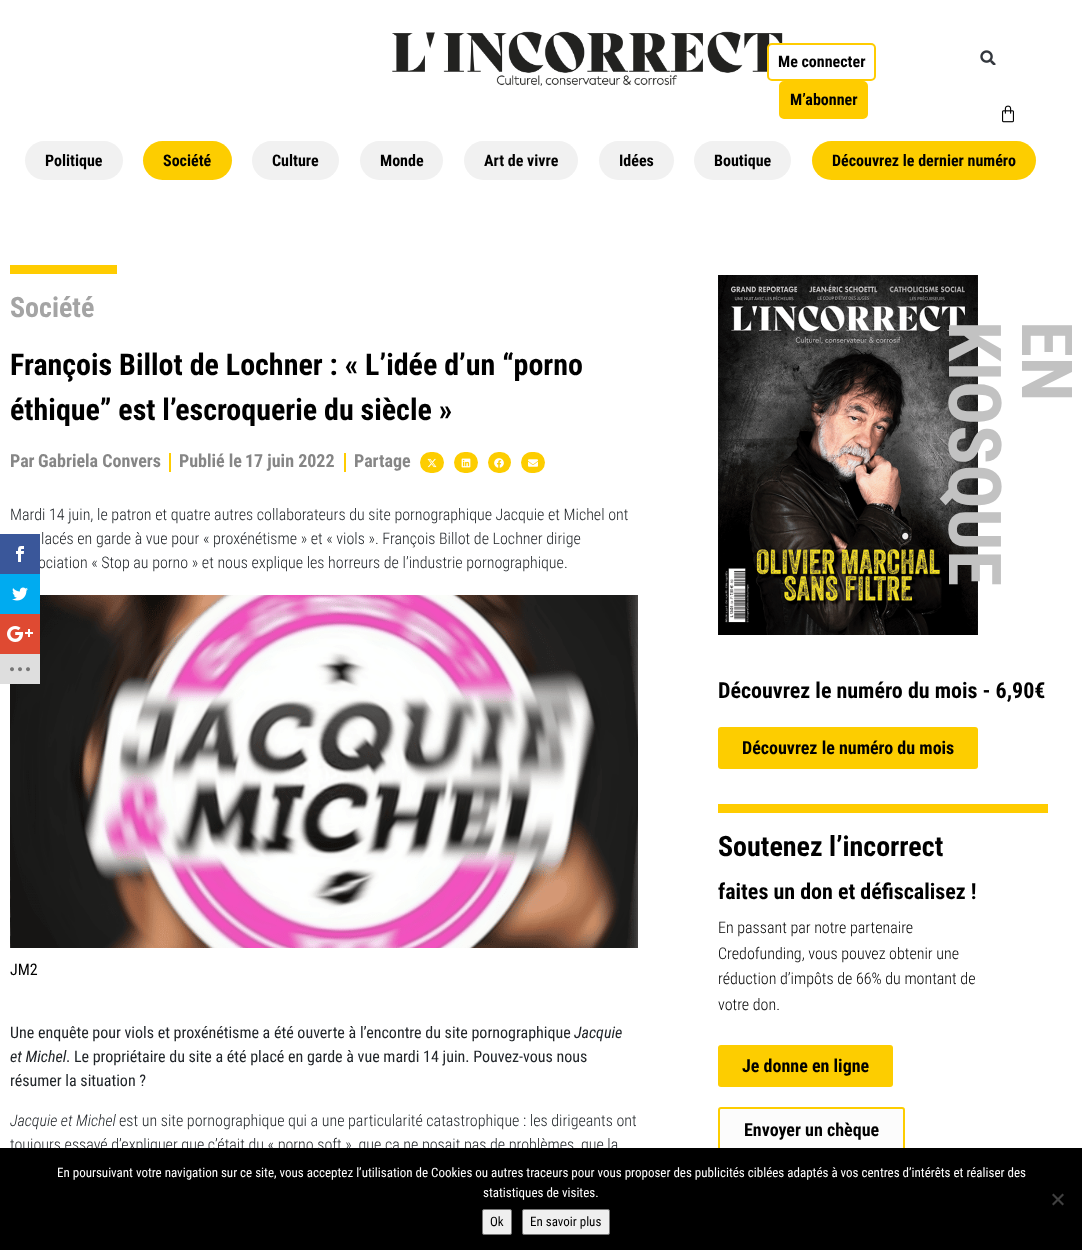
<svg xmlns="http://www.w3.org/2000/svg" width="1082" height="1250">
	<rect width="100%" height="100%" fill="#FFFFFF" />
	<image x="392" y="31" width="391" height="55" href="assets/img1.png" />
	<rect x="768" y="44" width="107" height="36" rx="4" fill="#FFFFFF" stroke="#FFCC00" stroke-width="2" />
	<rect x="780" y="82" width="87" height="36" rx="4" fill="#FFCC00" stroke="#FFCC00" stroke-width="2" />
	<image x="980" y="50" width="16" height="15" href="assets/img2.png" />
	<image x="1002" y="105" width="12" height="18" href="assets/img3.png" />
	<rect x="25" y="141" width="98" height="39" rx="19.5" fill="#F1F1F1" />
	<rect x="143" y="141" width="89" height="39" rx="19.5" fill="#FDCD00" />
	<rect x="252" y="141" width="87" height="39" rx="19.5" fill="#F1F1F1" />
	<rect x="360" y="141" width="83" height="39" rx="19.5" fill="#F1F1F1" />
	<rect x="464" y="141" width="114" height="39" rx="19.5" fill="#F1F1F1" />
	<rect x="599" y="141" width="75" height="39" rx="19.5" fill="#F1F1F1" />
	<rect x="694" y="141" width="97" height="39" rx="19.5" fill="#F1F1F1" />
	<rect x="812" y="141" width="224" height="39" rx="19.5" fill="#FDCD00" />
	<rect x="10" y="265" width="107" height="9" fill="#FFCC00" />
	<rect x="169" y="453" width="2" height="19" fill="#FFCC00" />
	<rect x="344" y="453" width="2" height="19" fill="#FFCC00" />
	<rect x="420" y="452" width="24" height="21" rx="10.5" fill="#FDCD00" />
	<image x="427" y="458" width="10" height="10" href="assets/img4.png" />
	<rect x="454" y="452" width="24" height="21" rx="10.5" fill="#FDCD00" />
	<image x="461" y="458" width="10" height="10" href="assets/img5.png" />
	<rect x="488" y="452" width="23" height="21" rx="10.5" fill="#FDCD00" />
	<image x="494" y="458" width="10" height="10" href="assets/img6.png" />
	<rect x="521" y="452" width="24" height="21" rx="10.5" fill="#FDCD00" />
	<image x="528" y="459" width="10" height="8" href="assets/img7.png" />
	<image x="10" y="595" width="628" height="353" href="assets/img8.png" />
	<image x="718" y="275" width="260" height="360" href="assets/img9.png" />
	<text x="1022" y="321" transform="rotate(90 1022 321)" font-family="Roboto Condensed" font-size="73" font-weight="700" fill="#C2C2C2">EN</text>
	<rect x="718" y="727" width="260" height="42" rx="3" fill="#FDCD00" />
	<rect x="718" y="804" width="330" height="9" fill="#FFCC00" />
	<rect x="718" y="1045" width="175" height="42" rx="3" fill="#FDCD00" />
	<rect x="719" y="1108" width="185" height="44" rx="2" fill="#FCFCFC" stroke="#FDCD00" stroke-width="2" />
	<rect x="5" y="5" width="1072" height="1240" fill="none" stroke="#FFFFFF" stroke-width="10" />
	<g font-family="Roboto Condensed" font-size="16" font-weight="700" fill="#000000">
		<text x="778" y="67">Me connecter</text>
		<text x="790" y="105">M’abonner</text>
		<text x="45" y="166">Politique</text>
		<text x="163" y="166">Société</text>
		<text x="272" y="166">Culture</text>
		<text x="380" y="166">Monde</text>
		<text x="484" y="166">Art de vivre</text>
		<text x="619" y="166">Idées</text>
		<text x="714" y="166">Boutique</text>
		<text x="832" y="166">Découvrez le dernier numéro</text>
	</g>
	<text x="10" y="317" font-family="Roboto Condensed" font-size="28" font-weight="700" fill="#A4A4A4">Société</text>
	<g font-family="Roboto Condensed" font-size="30" font-weight="700" fill="#000000">
		<text x="10" y="375">François Billot de Lochner : « L’idée d’un “porno</text>
		<text x="10" y="420">éthique” est l’escroquerie du siècle »</text>
	</g>
	<g font-family="Roboto Condensed" font-size="18" font-weight="700" fill="#868686">
		<text x="10" y="467">Par</text>
		<text x="38" y="467">Gabriela Convers</text>
		<text x="179" y="467">Publié le</text>
		<text x="245" y="467">17 juin 2022</text>
		<text x="354" y="467">Partage</text>
	</g>
	<g font-family="Roboto Condensed" font-size="16" font-weight="300" fill="#212529">
		<text x="10" y="520">Mardi 14 juin, le patron et quatre autres collaborateurs du site pornographique Jacquie et Michel ont</text>
		<text x="41" y="544">lacés en garde à vue pour « proxénétisme » et « viols ». François Billot de Lochner dirige</text>
		<text x="38" y="568">ociation « Stop au porno » et nous explique les horreurs de l’industrie pornographique.</text>
	</g>
	<text x="10" y="975" font-family="Roboto Condensed" font-size="16" fill="#000000">JM2</text>
	<text x="10" y="1038" font-family="Roboto Condensed" font-size="16" fill="#212529">Une enquête pour viols et proxénétisme a été ouverte à l’encontre du site pornographique</text>
	<g font-family="Roboto Condensed" font-size="16" font-style="italic" fill="#212529">
		<text x="574" y="1038">Jacquie</text>
		<text x="10" y="1062">et Michel</text>
	</g>
	<g font-family="Roboto Condensed" font-size="16" fill="#212529">
		<text x="66" y="1062">. Le propriétaire du site a été placé en garde à vue mardi 14 juin. Pouvez-vous nous</text>
		<text x="10" y="1086">résumer la situation ?</text>
	</g>
	<text x="10" y="1126" font-family="Roboto Condensed" font-size="16" font-weight="300" font-style="italic" fill="#212529">Jacquie et Michel</text>
	<g font-family="Roboto Condensed" font-size="16" font-weight="300" fill="#212529">
		<text x="119" y="1126">est un site pornographique qui a une particularité catastrophique : les dirigeants ont</text>
		<text x="10" y="1150">toujours essayé d’expliquer que c’était du « porno soft », que ça ne posait pas de problèmes, que la</text>
	</g>
	<text x="949" y="321" transform="rotate(90 949 321)" font-family="Roboto Condensed" font-size="73" font-weight="700" fill="#C2C2C2">KIOSQUE</text>
	<text x="718" y="698" font-family="Roboto Condensed" font-size="22" font-weight="700" fill="#000000">Découvrez le numéro du mois - 6,90€</text>
	<text x="742" y="754" font-family="Roboto Condensed" font-size="18" font-weight="700" fill="#000000">Découvrez le numéro du mois</text>
	<text x="718" y="856" font-family="Roboto Condensed" font-size="28" font-weight="700" fill="#000000">Soutenez l’incorrect</text>
	<text x="718" y="899" font-family="Roboto Condensed" font-size="22" font-weight="700" fill="#000000">faites un don et défiscalisez !</text>
	<g font-family="Roboto Condensed" font-size="16" font-weight="300" fill="#000000">
		<text x="718" y="933">En passant par notre partenaire</text>
		<text x="718" y="959">Credofunding, vous pouvez obtenir une</text>
		<text x="718" y="984">réduction d’impôts de 66% du montant de</text>
		<text x="718" y="1010">votre don.</text>
	</g>
	<g font-family="Roboto Condensed" font-size="18" font-weight="700" fill="#000000">
		<text x="742" y="1072">Je donne en ligne</text>
		<text x="744" y="1136">Envoyer un chèque</text>
	</g>
	<rect x="0" y="534" width="40" height="40" fill="#3A579A" />
	<image x="16" y="546" width="8" height="16" href="assets/img10.png" />
	<rect x="0" y="574" width="40" height="40" fill="#00ABF0" />
	<image x="12" y="587" width="16" height="14" href="assets/img11.png" />
	<rect x="0" y="614" width="40" height="40" fill="#DF4A32" />
	<image x="7" y="626" width="26" height="16" href="assets/img12.png" />
	<rect x="0" y="654" width="40" height="30" fill="#DEDEDE" />
	<image x="10" y="667" width="20" height="5" href="assets/img13.png" />
	<rect x="0" y="1148" width="1082" height="102" fill="#000000" />
	<g font-family="Roboto Condensed" font-size="13" fill="#FFFFFF">
		<text x="57" y="1177">En poursuivant votre navigation sur ce site, vous acceptez l’utilisation de Cookies ou autres traceurs pour vous proposer des publicités ciblées adaptés à vos centres d’intérêts et réaliser des</text>
		<text x="483" y="1197">statistiques de visites.</text>
	</g>
	<path d="M1062.5 1193.5L1064 1195L1053.5 1205.5L1052 1204Z" fill="#404040" />
	<path d="M1052 1195L1053.5 1193.5L1064 1204L1062.5 1205.5Z" fill="#404040" />
	<rect x="482.5" y="1209.5" width="29" height="25" rx="1.5" fill="#EFEFEF" stroke="#767676" />
	<text x="490" y="1226" font-family="Roboto Condensed" font-size="13" fill="#000000">Ok</text>
	<rect x="522.5" y="1209.5" width="87" height="25" rx="1.5" fill="#EFEFEF" stroke="#767676" />
	<text x="530" y="1226" font-family="Roboto Condensed" font-size="13" fill="#000000">En savoir plus</text>
</svg>
